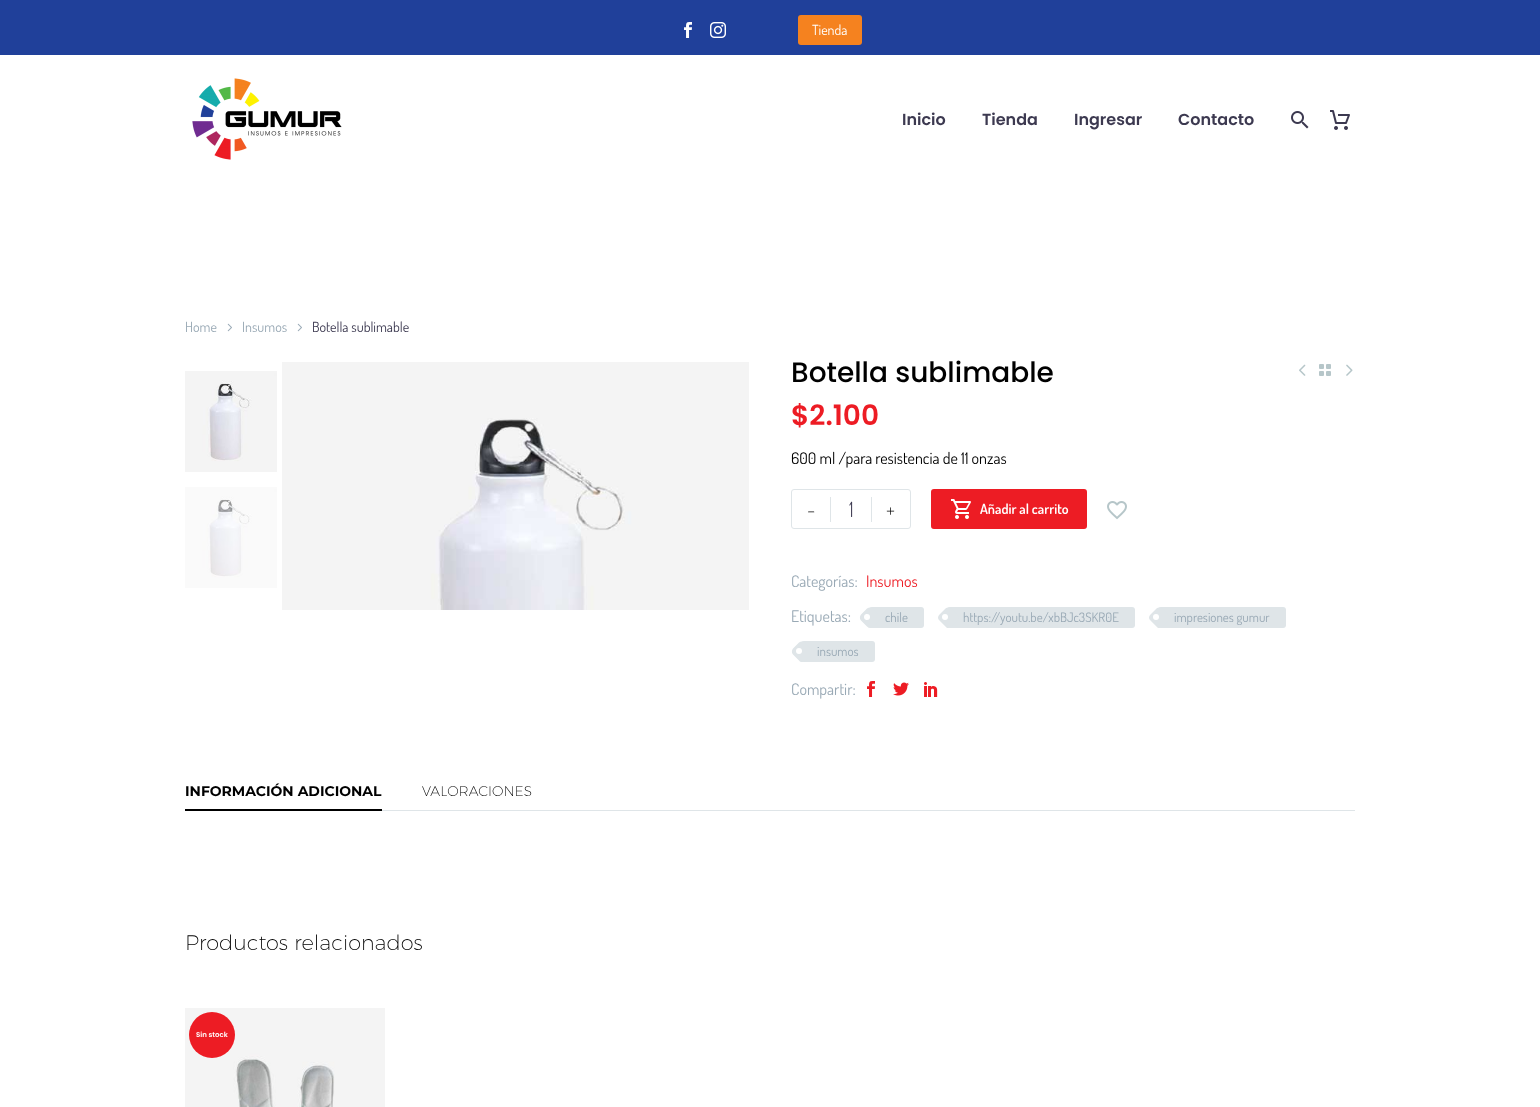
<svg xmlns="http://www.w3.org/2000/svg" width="1540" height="1107">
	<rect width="100%" height="100%" fill="#FFFFFF" />
	<rect x="0" y="0" width="1540" height="55" fill="#20409A" />
	<image x="684" y="22" width="8" height="16" href="assets/img1.png" />
	<image x="710" y="22" width="16" height="16" href="assets/img2.png" />
	<rect x="798" y="15" width="64" height="30" rx="3" fill="#F5821F" />
	<text x="812" y="35" font-family="Dosis" font-size="14" fill="#FFFFFF">Tienda</text>
	<image x="192" y="78" width="150" height="82" href="assets/img3.png" />
	<g font-family="Poppins" font-size="16" font-weight="600" fill="#3C3950">
		<text x="902" y="125">Inicio</text>
		<text x="982" y="125">Tienda</text>
		<text x="1074" y="125">Ingresar</text>
		<text x="1178" y="125">Contacto</text>
	</g>
	<image x="1291" y="111" width="18" height="18" href="assets/img4.png" />
	<image x="1330" y="110" width="20" height="20" href="assets/img5.png" />
	<text x="185" y="332" font-family="Dosis" font-size="14" fill="#99A9B5">Home</text>
	<image x="227" y="323" width="5" height="9" href="assets/img6.png" />
	<text x="242" y="332" font-family="Dosis" font-size="14" fill="#99A9B5">Insumos</text>
	<image x="297" y="323" width="5" height="9" href="assets/img6.png" />
	<text x="312" y="332" font-family="Dosis" font-size="14" fill="#3C3950">Botella sublimable</text>
	<image x="185" y="371" width="92" height="101" href="assets/img7.png" />
	<image x="185" y="487" width="92" height="101" href="assets/img8.png" />
	<image x="282" y="362" width="467" height="248" href="assets/img9.png" />
	<text x="791" y="382" font-family="Poppins" font-size="28" font-weight="500" fill="#000000">Botella sublimable</text>
	<image x="1299" y="364" width="7" height="12" href="assets/img10.png" />
	<image x="1319" y="364" width="12" height="12" href="assets/img11.png" />
	<image x="1346" y="364" width="7" height="12" href="assets/img12.png" />
	<text x="791" y="425" font-family="Poppins" font-size="28" font-weight="600" fill="#ED1C24">$2.100</text>
	<text x="791" y="464" font-family="Dosis" font-size="16" fill="#000000">600 ml /para resistencia de 11 onzas</text>
	<rect x="791.5" y="489.5" width="119" height="39" rx="2.5" fill="none" stroke="#DFE5E8" />
	<text x="807" y="517" font-family="Dosis" font-size="21" font-weight="200" fill="#000000">-</text>
	<rect x="830" y="497" width="1" height="25" fill="#DFE5E8" />
	<text x="849" y="517" font-family="Dosis" font-size="21" font-weight="300" fill="#3C3950">1</text>
	<rect x="871" y="497" width="1" height="25" fill="#DFE5E8" />
	<text x="886" y="517" font-family="Dosis" font-size="21" font-weight="200" fill="#000000">+</text>
	<rect x="932" y="490" width="154" height="38" rx="2" fill="#ED1C24" stroke="#ED1C24" stroke-width="2" />
	<image x="951" y="499" width="20" height="20" href="assets/img13.png" />
	<text x="980" y="514" font-family="Dosis" font-size="14" font-weight="600" fill="#FFFFFF">Añadir al carrito</text>
	<image x="1107" y="501" width="20" height="19" href="assets/img14.png" />
	<text x="791" y="587" font-family="Dosis" font-size="16" fill="#99A9B5">Categorías:</text>
	<text x="866" y="587" font-family="Dosis" font-size="16" fill="#ED1C24">Insumos</text>
	<text x="791" y="622" font-family="Dosis" font-size="16" fill="#99A9B5">Etiquetas:</text>
	<rect x="869" y="607" width="55" height="21" rx="3" fill="#DFE5E8" />
	<path d="M873 608.5L879 614.5C881 616.5 881 619 879 620.5L873 626.5C871.5 628.5 869 628.5 867 626.5L861 620.5C859.5 619 859.5 616.5 861 614.5L867 608.5C869 607 871.5 607 873 608.5Z" fill="#DFE5E8" />
	<text x="885" y="622" font-family="Dosis" font-size="13" fill="#99A9B5">chile</text>
	<circle cx="867" cy="617" r="3" fill="#FFFFFF" />
	<rect x="947" y="607" width="188" height="21" rx="3" fill="#DFE5E8" />
	<path d="M951.5 608.5L957.5 614.5C959 616.5 959 619 957.5 620.5L951.5 626.5C949.5 628.5 947 628.5 945.5 626.5L939.5 620.5C937.5 619 937.5 616.5 939.5 614.5L945.5 608.5C947 607 949.5 607 951.5 608.5Z" fill="#DFE5E8" />
	<text x="963" y="622" font-family="Dosis" font-size="13" fill="#99A9B5">https://youtu.be/xbBJc3SKR0E</text>
	<circle cx="945" cy="617" r="3" fill="#FFFFFF" />
	<rect x="1158" y="607" width="128" height="21" rx="3" fill="#DFE5E8" />
	<path d="M1162.5 608.5L1168.5 614.5C1170 616.5 1170 619 1168.5 620.5L1162.5 626.5C1160.5 628.5 1158 628.5 1156.5 626.5L1150.5 620.5C1148.5 619 1148.5 616.5 1150.5 614.5L1156.5 608.5C1158 607 1160.5 607 1162.5 608.5Z" fill="#DFE5E8" />
	<text x="1174" y="622" font-family="Dosis" font-size="13" fill="#99A9B5">impresiones gumur</text>
	<circle cx="1156" cy="617" r="3" fill="#FFFFFF" />
	<rect x="801" y="641" width="74" height="21" rx="3" fill="#DFE5E8" />
	<path d="M805 642.5L811 648.5C812.5 650.5 812.5 653 811 654.5L805 660.5C803.5 662.5 800.5 662.5 799 660.5L793 654.5C791.5 653 791.5 650.5 793 648.5L799 642.5C800.5 641 803.5 641 805 642.5Z" fill="#DFE5E8" />
	<text x="817" y="656" font-family="Dosis" font-size="13" fill="#99A9B5">insumos</text>
	<circle cx="799" cy="651" r="3" fill="#FFFFFF" />
	<text x="791" y="695" font-family="Dosis" font-size="16" fill="#99A9B5">Compartir:</text>
	<image x="867" y="681" width="8" height="16" href="assets/img15.png" />
	<image x="893" y="682" width="16" height="14" href="assets/img16.png" />
	<image x="924" y="682" width="14" height="15" href="assets/img17.png" />
	<text x="185" y="796" font-family="Montserrat" font-size="14" font-weight="700" fill="#000000">INFORMACIÓN ADICIONAL</text>
	<text x="422" y="796" font-family="Montserrat" font-size="14" font-weight="200" fill="#000000">VALORACIONES</text>
	<rect x="382" y="810" width="973" height="1" fill="#DFE5E8" />
	<rect x="185" y="809" width="197" height="2" fill="#000000" />
	<text x="185" y="950" font-family="Montserrat" font-size="21" font-weight="200" fill="#000000">Productos relacionados</text>
	<image x="185" y="1008" width="200" height="99" href="assets/img18.png" />
	<circle cx="212" cy="1035" r="23" fill="#ED1C24" />
	<text x="196" y="1037" font-family="Poppins" font-size="7" font-weight="600" fill="#FFFFFF">Sin stock</text>
</svg>
